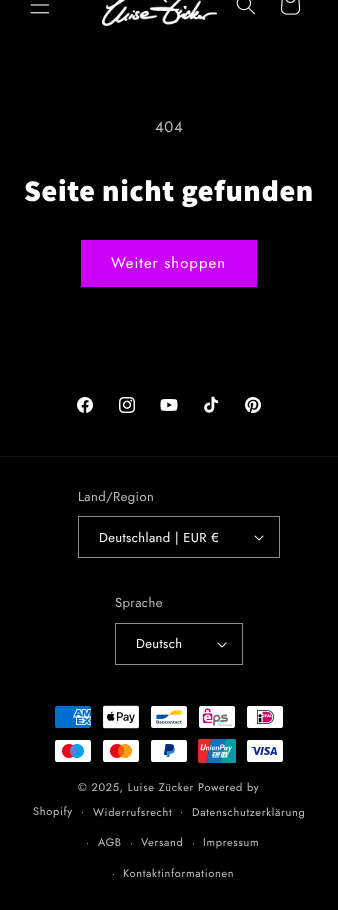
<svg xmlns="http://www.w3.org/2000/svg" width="338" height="910">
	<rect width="100%" height="100%" fill="#000000" />
	<image x="30" y="4" width="20" height="10" href="assets/img1.png" />
	<image x="102" y="0" width="115" height="26" href="assets/img2.png" />
	<image x="236" y="0" width="19" height="15" href="assets/img3.png" />
	<image x="281" y="0" width="20" height="15" href="assets/img4.png" />
	<text x="155" y="132" font-family="Jost" font-size="15" letter-spacing="0.6" fill="#BFBFBF">404</text>
	<text x="24" y="201" font-family="Assistant" font-size="30" font-weight="800" letter-spacing="0.6" fill="#FFFFFF">Seite nicht gefunden</text>
	<rect x="81" y="240" width="176" height="47" fill="#CB00FB" />
	<text x="111" y="268" font-family="Jost" font-size="15" letter-spacing="1" fill="#FFFFFF">Weiter shoppen</text>
	<image x="77" y="397" width="16" height="16" href="assets/img5.png" />
	<image x="119" y="397" width="16" height="16" href="assets/img6.png" />
	<image x="160" y="399" width="18" height="12" href="assets/img7.png" />
	<image x="204" y="396" width="15" height="17" href="assets/img8.png" />
	<image x="245" y="397" width="16" height="16" href="assets/img9.png" />
	<rect x="0" y="456" width="338" height="1" fill="#141414" />
	<text x="78" y="501" font-family="Jost" font-size="13" letter-spacing="0.4" fill="#BFBFBF">Land/Region</text>
	<image x="254" y="535" width="10" height="6" href="assets/img10.png" />
	<rect x="78.5" y="516.5" width="201" height="41" fill="none" stroke="#8C8C8C" />
	<text x="99" y="542" font-family="Jost" font-size="13" letter-spacing="0.4" fill="#FFFFFF">Deutschland | EUR €</text>
	<text x="115" y="607" font-family="Jost" font-size="13" letter-spacing="0.4" fill="#BFBFBF">Sprache</text>
	<image x="217" y="642" width="10" height="6" href="assets/img10.png" />
	<rect x="115.5" y="623.5" width="127" height="41" fill="none" stroke="#8C8C8C" />
	<text x="136" y="648" font-family="Jost" font-size="13" letter-spacing="0.4" fill="#FFFFFF">Deutsch</text>
	<image x="55" y="706" width="36" height="22" href="assets/img11.png" />
	<image x="103" y="705" width="36" height="24" href="assets/img12.png" />
	<image x="151" y="706" width="36" height="22" href="assets/img13.png" />
	<image x="199" y="706" width="36" height="22" href="assets/img14.png" />
	<image x="247" y="706" width="36" height="22" href="assets/img15.png" />
	<image x="55" y="740" width="36" height="22" href="assets/img16.png" />
	<image x="103" y="740" width="36" height="22" href="assets/img17.png" />
	<image x="151" y="740" width="36" height="22" href="assets/img18.png" />
	<image x="198" y="739" width="38" height="24" href="assets/img19.png" />
	<image x="247" y="740" width="36" height="22" href="assets/img20.png" />
	<g font-family="Jost" font-size="11" letter-spacing="0.7" fill="#BFBFBF">
		<text x="78" y="791">© 2025, Luise Zücker Powered by</text>
		<text x="33" y="815">Shopify</text>
	</g>
	<text x="81" y="815" font-family="Jost" font-size="10" letter-spacing="0.7" fill="#BFBFBF">·</text>
	<text x="93" y="816" font-family="Jost" font-size="11" letter-spacing="0.7" fill="#BFBFBF">Widerrufsrecht</text>
	<text x="180" y="815" font-family="Jost" font-size="10" letter-spacing="0.7" fill="#BFBFBF">·</text>
	<text x="192" y="816" font-family="Jost" font-size="11" letter-spacing="0.7" fill="#BFBFBF">Datenschutzerklärung</text>
	<text x="86" y="846" font-family="Jost" font-size="10" letter-spacing="0.7" fill="#BFBFBF">·</text>
	<text x="98" y="846" font-family="Jost" font-size="11" letter-spacing="0.7" fill="#BFBFBF">AGB</text>
	<text x="130" y="846" font-family="Jost" font-size="10" letter-spacing="0.7" fill="#BFBFBF">·</text>
	<text x="141" y="846" font-family="Jost" font-size="11" letter-spacing="0.7" fill="#BFBFBF">Versand</text>
	<text x="192" y="846" font-family="Jost" font-size="10" letter-spacing="0.7" fill="#BFBFBF">·</text>
	<text x="203" y="846" font-family="Jost" font-size="11" letter-spacing="0.7" fill="#BFBFBF">Impressum</text>
	<text x="112" y="877" font-family="Jost" font-size="10" letter-spacing="0.7" fill="#BFBFBF">·</text>
	<text x="123" y="877" font-family="Jost" font-size="11" letter-spacing="0.7" fill="#BFBFBF">Kontaktinformationen</text>
</svg>
